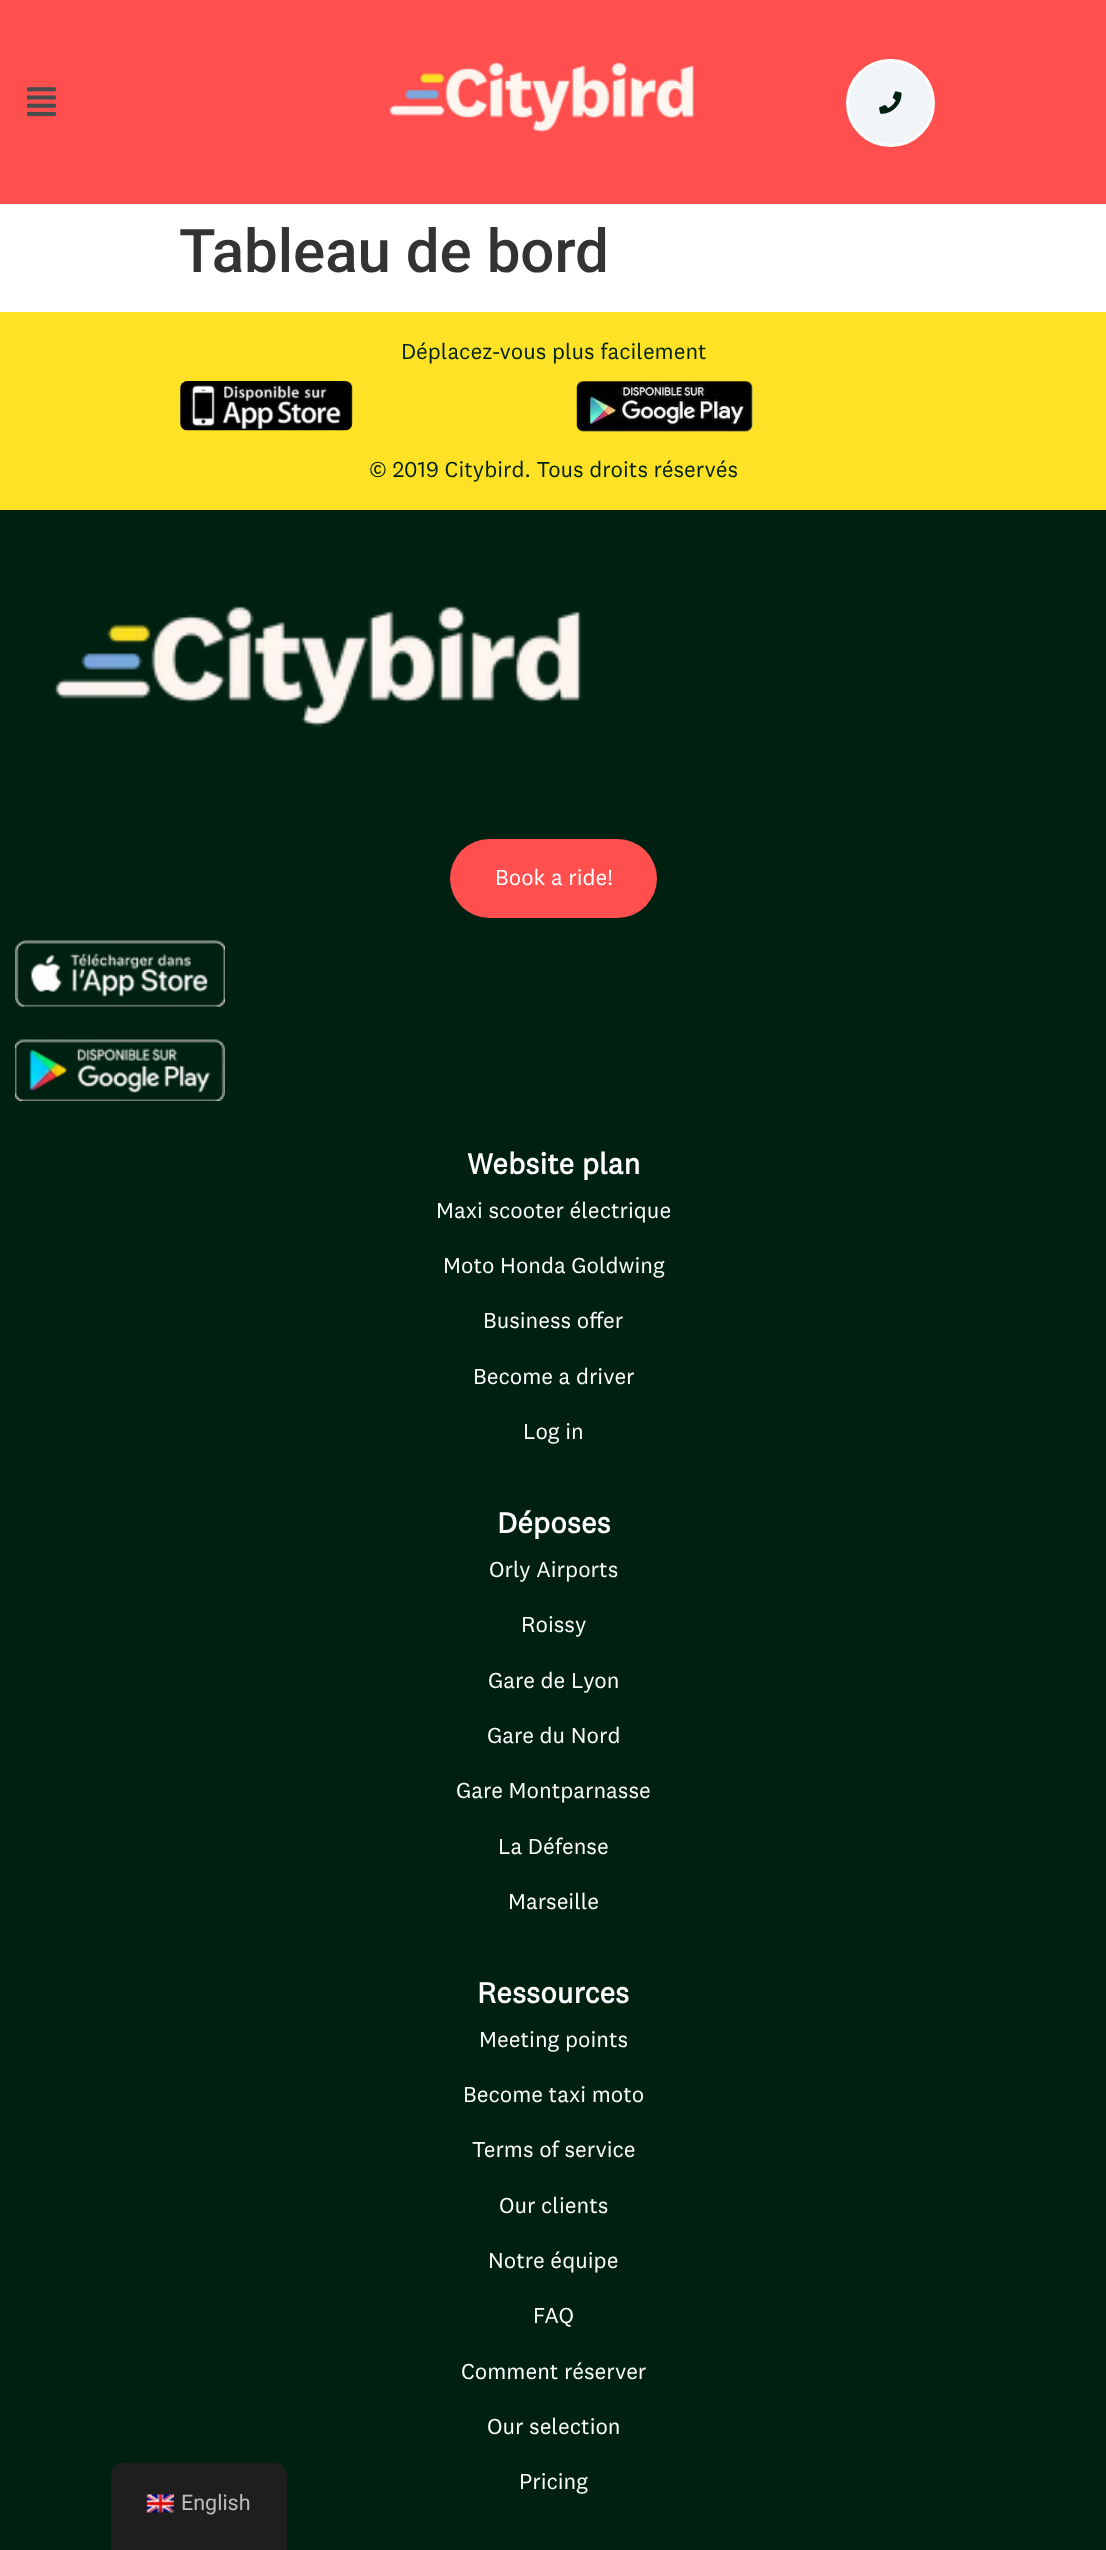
<svg xmlns="http://www.w3.org/2000/svg" width="1106" height="2550">
	<rect width="100%" height="100%" fill="#FFFFFF" />
	<rect x="0" y="0" width="1106" height="204" fill="#FF4F4F" />
	<image x="27" y="87" width="29" height="30" href="assets/img1.png" />
	<image x="389" y="62" width="306" height="71" href="assets/img2.png" />
	<rect x="847.5" y="60.5" width="86" height="85" rx="42.5" fill="#F2F5F8" stroke="#FFFFFF" stroke-width="3" />
	<image x="879" y="91" width="23" height="23" href="assets/img3.png" />
	<text x="179" y="272" font-family="Roboto" font-size="60" font-weight="500" fill="#333333">Tableau de bord</text>
	<rect x="0" y="312" width="1106" height="198" fill="#FFE226" />
	<text x="401" y="359" font-family="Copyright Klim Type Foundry" font-size="22.5" fill="#002111">Déplacez-vous plus facilement</text>
	<image x="180" y="381" width="173" height="50" href="assets/img4.png" />
	<image x="576" y="380" width="177" height="52" href="assets/img5.png" />
	<text x="369" y="477" font-family="Copyright Klim Type Foundry" font-size="22.5" fill="#002111">© 2019 Citybird. Tous droits réservés</text>
	<rect x="0" y="510" width="1106" height="2040" fill="#002111" />
	<image x="55" y="606" width="527" height="121" href="assets/img6.png" />
	<rect x="450" y="839" width="207" height="79" rx="39.5" fill="#FF4F4F" />
	<text x="495" y="885" font-family="Copyright Klim Type Foundry" font-size="22.5" fill="#FFFFFF">Book a ride!</text>
	<image x="15" y="940" width="210" height="67" href="assets/img7.png" />
	<image x="15" y="1039" width="210" height="62" href="assets/img8.png" />
	<text x="467" y="1174" font-family="Copyright Klim Type Foundry" font-size="30" font-weight="700" fill="#FFFFFF">Website plan</text>
	<g font-family="Copyright Klim Type Foundry" font-size="22.5" fill="#FFFFFF">
		<text x="436" y="1218">Maxi scooter électrique</text>
		<text x="443" y="1273">Moto Honda Goldwing</text>
		<text x="483" y="1328">Business offer</text>
		<text x="473" y="1384">Become a driver</text>
		<text x="523" y="1439">Log in</text>
	</g>
	<text x="497" y="1533" font-family="Copyright Klim Type Foundry" font-size="30" font-weight="700" fill="#FFFFFF">Déposes</text>
	<g font-family="Copyright Klim Type Foundry" font-size="22.5" fill="#FFFFFF">
		<text x="489" y="1577">Orly Airports</text>
		<text x="521" y="1632">Roissy</text>
		<text x="488" y="1688">Gare de Lyon</text>
		<text x="487" y="1743">Gare du Nord</text>
		<text x="456" y="1798">Gare Montparnasse</text>
		<text x="498" y="1854">La Défense</text>
		<text x="508" y="1909">Marseille</text>
	</g>
	<text x="477" y="2003" font-family="Copyright Klim Type Foundry" font-size="30" font-weight="700" fill="#FFFFFF">Ressources</text>
	<g font-family="Copyright Klim Type Foundry" font-size="22.5" fill="#FFFFFF">
		<text x="479" y="2047">Meeting points</text>
		<text x="463" y="2102">Become taxi moto</text>
		<text x="472" y="2157">Terms of service</text>
		<text x="499" y="2213">Our clients</text>
		<text x="488" y="2268">Notre équipe</text>
		<text x="533" y="2323">FAQ</text>
		<text x="461" y="2379">Comment réserver</text>
		<text x="487" y="2434">Our selection</text>
		<text x="519" y="2489">Pricing</text>
	</g>
	<path d="M123 2463H275C281.5 2463 287 2468.5 287 2475V2550H111V2475C111 2468.5 116.5 2463 123 2463Z" fill="#1E1E1E" />
	<image x="146" y="2494" width="28" height="19" href="assets/img9.png" />
	<text x="181" y="2510" font-family="Roboto" font-size="21.5" fill="#BDBDBD">English</text>
</svg>
